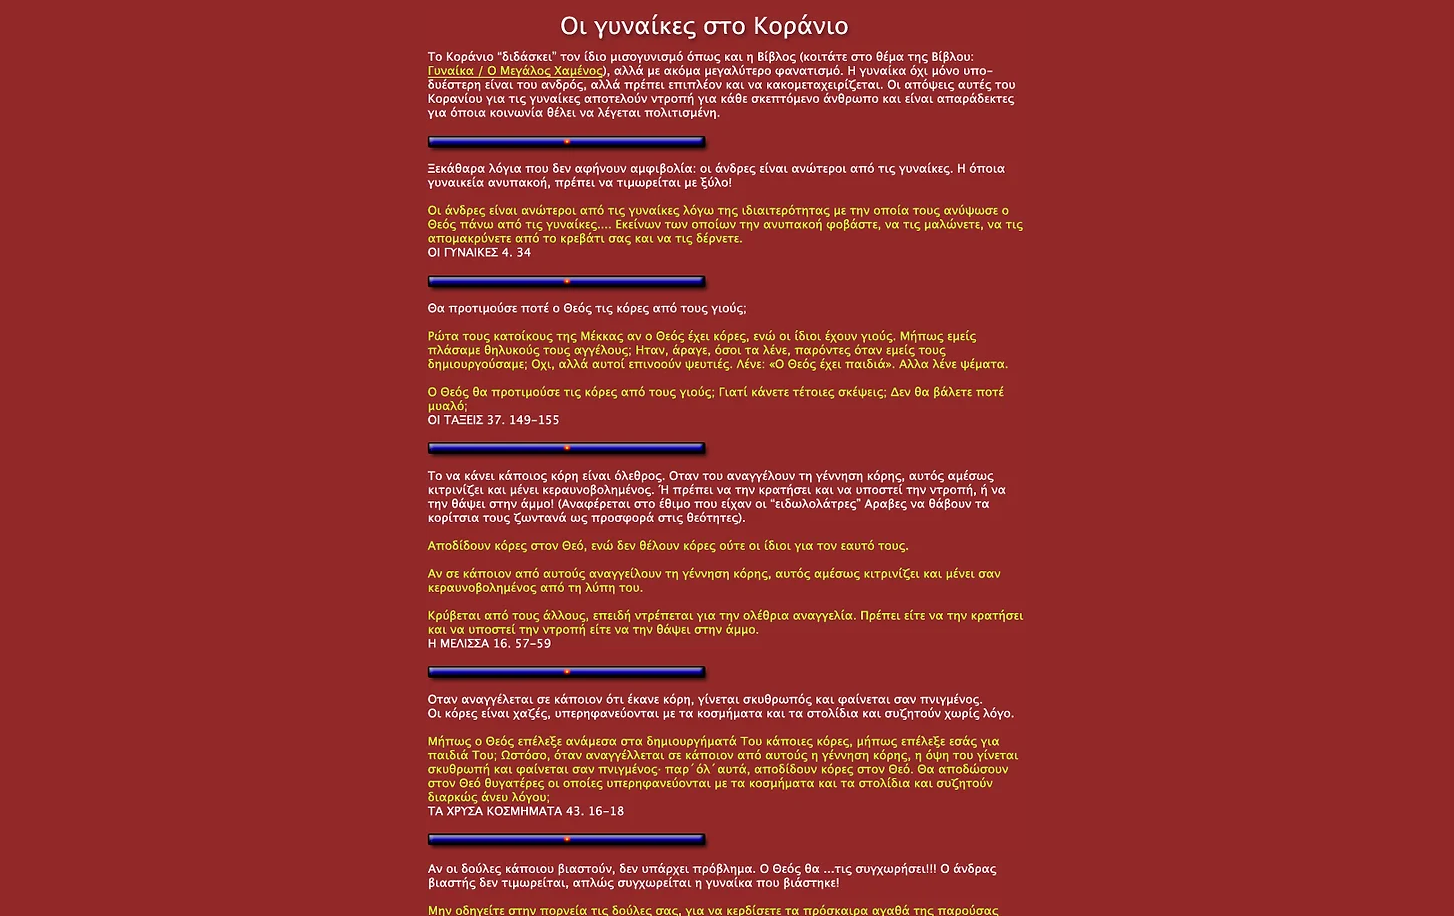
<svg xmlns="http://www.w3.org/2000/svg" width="1454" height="916">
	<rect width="100%" height="100%" fill="#922828" />
	<image x="426" y="9" width="600" height="842" href="assets/img1.png" />
	<image x="426" y="862" width="576" height="54" href="assets/img2.png" />
</svg>
